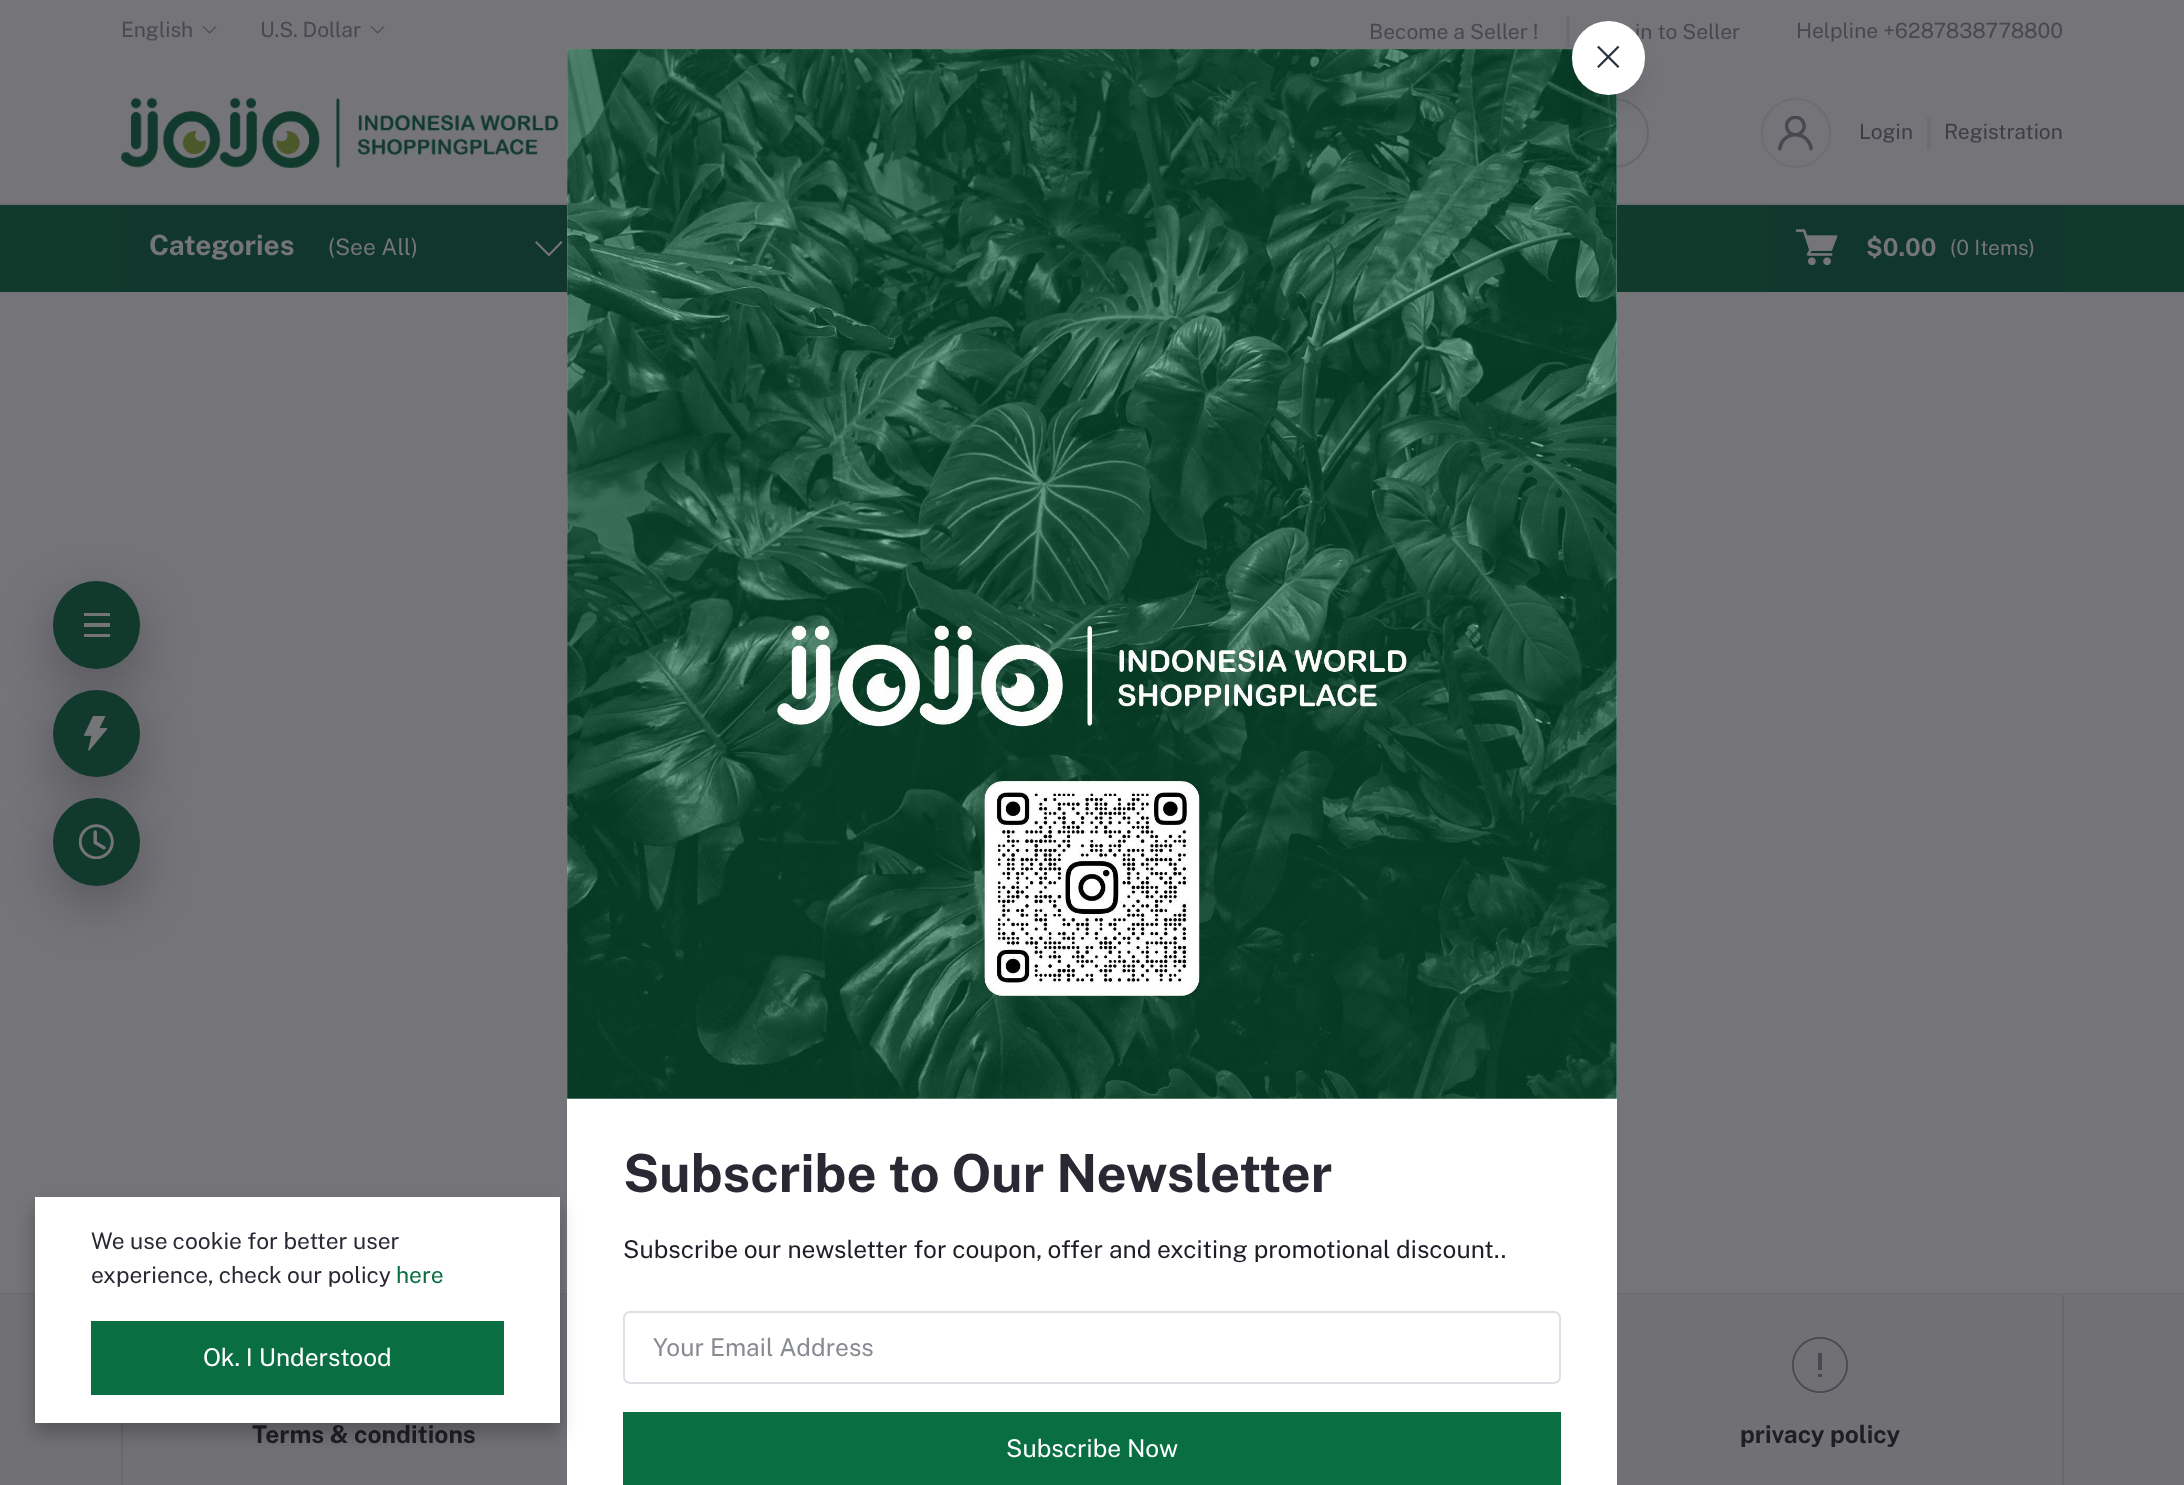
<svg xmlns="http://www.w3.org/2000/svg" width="2184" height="1485">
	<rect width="100%" height="100%" fill="#747479" />
	<rect x="53" y="599" width="87" height="87" rx="43.5" fill="#38383D" fill-opacity="0.5" filter="blur(26px)" />
	<rect x="53" y="707" width="87" height="88" rx="43.5" fill="#38383D" fill-opacity="0.5" filter="blur(26px)" />
	<rect x="53" y="581" width="87" height="88" rx="43.5" fill="#113A2D" />
	<rect x="84" y="623" width="26" height="4" fill="#747479" />
	<rect x="84" y="613" width="26" height="3" fill="#747479" />
	<rect x="84" y="634" width="26" height="3" fill="#747479" />
	<rect x="53" y="816" width="87" height="87" rx="43.5" fill="#38383D" fill-opacity="0.5" filter="blur(26px)" />
	<circle cx="96.5" cy="733.5" r="43.5" fill="#113A2D" />
	<image x="84" y="716" width="24" height="35" href="assets/img1.png" />
	<rect x="53" y="798" width="87" height="88" rx="43.5" fill="#113A2D" />
	<image x="79" y="824" width="35" height="35" href="assets/img2.png" />
	<text x="121" y="37" font-family="Public Sans" font-size="21" fill="#484850">English</text>
	<image x="202" y="26" width="15" height="8" href="assets/img3.png" />
	<text x="260" y="37" font-family="Public Sans" font-size="21" fill="#484850">U.S. Dollar</text>
	<image x="370" y="26" width="15" height="8" href="assets/img3.png" />
	<rect x="1566" y="16" width="4" height="31" fill="#6D6D73" />
	<g font-family="Public Sans" font-size="21" fill="#484850">
		<text x="1369" y="39">Become a Seller !</text>
		<text x="1635" y="39">in to Seller</text>
		<text x="1796" y="38">Helpline +6287838778800</text>
	</g>
	<rect x="0" y="203" width="2184" height="2" fill="#6D6D73" />
	<image x="121" y="97" width="438" height="71" href="assets/img4.png" />
	<rect x="699" y="99" width="949" height="68" rx="34" fill="none" stroke="#67676F" stroke-width="2" />
	<circle cx="1796" cy="133" r="34" fill="none" stroke="#6D6D73" stroke-width="2" />
	<image x="1778" y="116" width="35" height="35" href="assets/img5.png" />
	<rect x="1927" y="117" width="4" height="32" fill="#6C6C73" />
	<g font-family="Public Sans" font-size="21" fill="#3D3D45">
		<text x="1859" y="139">Login</text>
		<text x="1944" y="139">Registration</text>
	</g>
	<rect x="0" y="205" width="2184" height="87" fill="#113A2D" />
	<rect x="121" y="205" width="446" height="87" fill="#11362B" />
	<text x="149" y="255" font-family="Public Sans" font-size="28" font-weight="700" fill="#747479">Categories</text>
	<text x="328" y="255" font-family="Public Sans" font-size="22.75" fill="#747479">(See All)</text>
	<path d="M536.5 241L535 242.5L549 256.5L562.5 242.5L561 241L549 253.5Z" fill="#747479" />
	<rect x="1768" y="205" width="295" height="87" fill="#11362B" />
	<image x="1796" y="229" width="42" height="37" href="assets/img6.png" />
	<text x="1866" y="256" font-family="Public Sans" font-size="24.5" font-weight="700" fill="#747479">$0.00</text>
	<text x="1950" y="255" font-family="Public Sans" font-size="21" fill="#747479">(0 Items)</text>
	<rect x="0" y="1295" width="2184" height="190" fill="#707075" />
	<rect x="0" y="1293" width="2184" height="2" fill="#6D6D73" />
	<rect x="121" y="1423" width="2" height="62" fill="#67676F" />
	<text x="252" y="1443" font-family="Public Sans" font-size="24.5" font-weight="700" fill="#1E1E27">Terms &amp; conditions</text>
	<rect x="2062" y="1295" width="2" height="190" fill="#67676F" />
	<image x="1792" y="1337" width="56" height="56" href="assets/img7.png" />
	<text x="1740" y="1443" font-family="Public Sans" font-size="24.5" font-weight="700" fill="#1E1E27">privacy policy</text>
	<rect x="567" y="1099" width="1050" height="386" fill="#FFFFFF" />
	<rect x="35" y="1208" width="525" height="225" fill="#000000" fill-opacity="0.24" filter="blur(9px)" />
	<rect x="35" y="1197" width="525" height="226" fill="#FFFFFF" />
	<g font-family="Public Sans" font-size="22.75" fill="#292933">
		<text x="91" y="1249">We use cookie for better user</text>
		<text x="91" y="1283">experience, check our policy</text>
	</g>
	<text x="396" y="1283" font-family="Public Sans" font-size="22.75" fill="#096F43">here</text>
	<rect x="91" y="1321" width="413" height="74" fill="#096F43" />
	<text x="203" y="1366" font-family="Public Sans" font-size="24.5" fill="#FFFFFF">Ok. I Understood</text>
	<image x="567" y="49" width="1050" height="1050" href="assets/img9.png" />
	<rect x="1577" y="44" width="63" height="63" rx="31.5" fill="#000000" fill-opacity="0.1" filter="blur(13px)" />
	<rect x="1572" y="21" width="73" height="74" rx="36.5" fill="#FFFFFF" />
	<image x="1597" y="45" width="23" height="23" href="assets/img8.png" />
	<text x="623" y="1192" font-family="Public Sans" font-size="52.5" font-weight="700" fill="#292933">Subscribe to Our Newsletter</text>
	<text x="623" y="1258" font-family="Public Sans" font-size="24.5" fill="#1E1E27">Subscribe our newsletter for coupon, offer and exciting promotional discount..</text>
	<rect x="624" y="1312" width="936" height="71" rx="6" fill="none" stroke="#DFDFE6" stroke-width="2" />
	<text x="653" y="1356" font-family="Public Sans" font-size="24.5" fill="#898B92">Your Email Address</text>
	<rect x="623" y="1412" width="938" height="73" fill="#096F43" />
	<text x="1006" y="1457" font-family="Public Sans" font-size="24.5" fill="#FFFFFF">Subscribe Now</text>
</svg>
